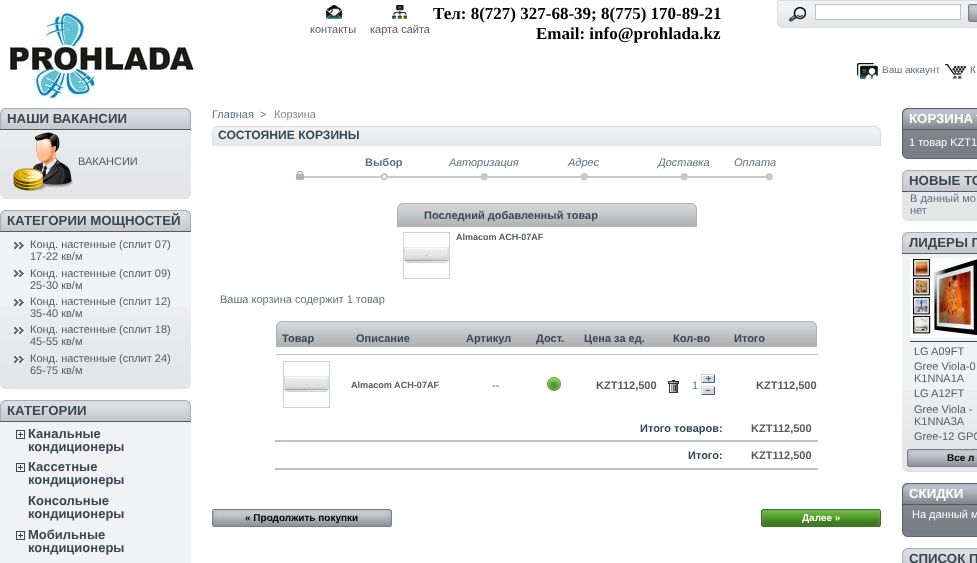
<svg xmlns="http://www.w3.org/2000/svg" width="977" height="563">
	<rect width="100%" height="100%" fill="#FFFFFF" />
	<image x="8" y="11" width="190" height="91" href="assets/img1.png" />
	<text x="433" y="19" font-family="Liberation Serif" font-size="17" font-weight="700" fill="#000000">Тел: 8(727) 327-68-39; 8(775) 170-89-21</text>
	<image x="326" y="5" width="16" height="14" href="assets/img2.png" />
	<text x="310" y="33" font-family="Liberation Sans" font-size="11" fill="#595A5E">контакты</text>
	<image x="392" y="5" width="15" height="14" href="assets/img3.png" />
	<text x="370" y="33" font-family="Liberation Sans" font-size="11" fill="#595A5E">карта сайта</text>
	<text x="536" y="39" font-family="Liberation Serif" font-size="17" font-weight="700" fill="#000000">Email: info@prohlada.kz</text>
	<image x="777" y="0" width="200" height="28" href="assets/img4.png" />
	<image x="789" y="7" width="17" height="15" href="assets/img5.png" />
	<rect x="815.5" y="4.5" width="145" height="15" fill="#FFFFFF" stroke="#BDC2C9" />
	<rect x="968" y="4" width="1" height="18" fill="#EFEFEF" />
	<image x="968" y="4" width="9" height="18" href="assets/img6.png" />
	<image x="857" y="63" width="21" height="16" href="assets/img7.png" />
	<text x="882" y="73" font-family="Liberation Sans" font-size="10" fill="#5D717E">Ваш аккаунт</text>
	<image x="945" y="64" width="21" height="15" href="assets/img8.png" />
	<text x="970" y="73" font-family="Liberation Sans" font-size="10" fill="#5D717E">К</text>
	<image x="0" y="194" width="191" height="5" href="assets/img9.png" />
	<image x="0" y="108" width="191" height="21" href="assets/img10.png" />
	<rect x="0" y="129" width="191" height="1" fill="#595A5E" />
	<text x="7" y="123" font-family="Liberation Sans" font-size="13.25" font-weight="700" fill="#374853">НАШИ ВАКАНСИИ</text>
	<image x="0" y="130" width="191" height="64" href="assets/img11.png" />
	<image x="13" y="132" width="60" height="60" href="assets/img12.png" />
	<text x="78" y="165" font-family="Liberation Sans" font-size="11" fill="#595A5E">ВАКАНСИИ</text>
	<image x="0" y="384" width="191" height="5" href="assets/img9.png" />
	<image x="0" y="210" width="191" height="21" href="assets/img10.png" />
	<rect x="0" y="231" width="191" height="1" fill="#595A5E" />
	<text x="7" y="225" font-family="Liberation Sans" font-size="13.25" font-weight="700" fill="#374853">КАТЕГОРИИ МОЩНОСТЕЙ</text>
	<rect x="0" y="232" width="191" height="75" fill="#F1F2F4" />
	<image x="0" y="307" width="191" height="77" href="assets/img13.png" />
	<image x="14" y="242" width="10" height="7" href="assets/img14.png" />
	<g font-family="Liberation Sans" font-size="11" fill="#595A5E">
		<text x="30" y="248">Конд. настенные (сплит 07)</text>
		<text x="30" y="260">17-22 кв/м</text>
	</g>
	<image x="14" y="270" width="10" height="7" href="assets/img14.png" />
	<g font-family="Liberation Sans" font-size="11" fill="#595A5E">
		<text x="30" y="277">Конд. настенные (сплит 09)</text>
		<text x="30" y="289">25-30 кв/м</text>
	</g>
	<image x="14" y="299" width="10" height="7" href="assets/img14.png" />
	<g font-family="Liberation Sans" font-size="11" fill="#595A5E">
		<text x="30" y="305">Конд. настенные (сплит 12)</text>
		<text x="30" y="317">35-40 кв/м</text>
	</g>
	<image x="14" y="327" width="10" height="7" href="assets/img14.png" />
	<g font-family="Liberation Sans" font-size="11" fill="#595A5E">
		<text x="30" y="333">Конд. настенные (сплит 18)</text>
		<text x="30" y="345">45-55 кв/м</text>
	</g>
	<image x="14" y="356" width="10" height="7" href="assets/img14.png" />
	<g font-family="Liberation Sans" font-size="11" fill="#595A5E">
		<text x="30" y="362">Конд. настенные (сплит 24)</text>
		<text x="30" y="374">65-75 кв/м</text>
	</g>
	<image x="0" y="400" width="191" height="21" href="assets/img10.png" />
	<rect x="0" y="421" width="191" height="1" fill="#595A5E" />
	<text x="7" y="415" font-family="Liberation Sans" font-size="13.25" font-weight="700" fill="#374853">КАТЕГОРИИ</text>
	<rect x="0" y="422" width="191" height="141" fill="#F1F2F4" />
	<image x="16" y="430" width="9" height="9" href="assets/img15.png" />
	<g font-family="Liberation Sans" font-size="13" font-weight="700" fill="#374853">
		<text x="28" y="438">Канальные</text>
		<text x="28" y="451">кондиционеры</text>
	</g>
	<image x="16" y="463" width="9" height="9" href="assets/img15.png" />
	<g font-family="Liberation Sans" font-size="13" font-weight="700" fill="#374853">
		<text x="28" y="471">Кассетные</text>
		<text x="28" y="484">кондиционеры</text>
		<text x="28" y="505">Консольные</text>
		<text x="28" y="518">кондиционеры</text>
	</g>
	<image x="16" y="531" width="9" height="9" href="assets/img15.png" />
	<g font-family="Liberation Sans" font-size="13" font-weight="700" fill="#374853">
		<text x="28" y="539">Мобильные</text>
		<text x="28" y="552">кондиционеры</text>
	</g>
	<text x="212" y="118" font-family="Liberation Sans" font-size="11" fill="#5D717E">Главная</text>
	<g font-family="Liberation Sans" font-size="11" fill="#888888">
		<text x="260" y="118">&gt;</text>
		<text x="274" y="118">Корзина</text>
	</g>
	<image x="212" y="126" width="669" height="20" href="assets/img16.png" />
	<text x="218" y="139" font-family="Liberation Sans" font-size="12.1" font-weight="700" fill="#374853">СОСТОЯНИЕ КОРЗИНЫ</text>
	<image x="296" y="171" width="38" height="9" href="assets/img17.png" />
	<image x="334" y="173" width="100" height="8" href="assets/img18.png" />
	<text x="365" y="166" font-family="Liberation Sans" font-size="11" font-weight="700" fill="#5D717E">Выбор</text>
	<image x="434" y="173" width="100" height="8" href="assets/img19.png" />
	<text x="449" y="166" font-family="Liberation Sans" font-size="11" font-style="italic" fill="#5D717E">Авторизация</text>
	<image x="534" y="173" width="100" height="8" href="assets/img19.png" />
	<text x="568" y="166" font-family="Liberation Sans" font-size="11" font-style="italic" fill="#5D717E">Адрес</text>
	<image x="634" y="173" width="100" height="8" href="assets/img19.png" />
	<text x="658" y="166" font-family="Liberation Sans" font-size="11" font-style="italic" fill="#5D717E">Доставка</text>
	<image x="734" y="173" width="39" height="8" href="assets/img20.png" />
	<text x="734" y="166" font-family="Liberation Sans" font-size="11" font-style="italic" fill="#5D717E">Оплата</text>
	<image x="673" y="203" width="24" height="24" href="assets/img21.png" />
	<image x="397" y="203" width="276" height="24" href="assets/img22.png" />
	<text x="424" y="219" font-family="Liberation Sans" font-size="11" font-weight="700" fill="#374853">Последний добавленный товар</text>
	<rect x="403.5" y="232.5" width="46" height="46" fill="none" stroke="#D0D1D5" />
	<image x="404" y="247" width="45" height="18" href="assets/img23.png" />
	<text x="456" y="240" font-family="Liberation Sans" font-size="9" font-weight="700" fill="#595A5E">Almacom ACH-07AF</text>
	<text x="220" y="303" font-family="Liberation Sans" font-size="11" fill="#5D717E">Ваша корзина содержит 1 товар</text>
	<image x="276" y="321" width="75" height="26" href="assets/img24.png" />
	<text x="282" y="342" font-family="Liberation Sans" font-size="11" font-weight="700" fill="#374853">Товар</text>
	<image x="351" y="321" width="109" height="26" href="assets/img25.png" />
	<text x="356" y="342" font-family="Liberation Sans" font-size="11" font-weight="700" fill="#374853">Описание</text>
	<image x="460" y="321" width="70" height="26" href="assets/img26.png" />
	<text x="466" y="342" font-family="Liberation Sans" font-size="11" font-weight="700" fill="#374853">Артикул</text>
	<image x="530" y="321" width="49" height="26" href="assets/img27.png" />
	<text x="536" y="342" font-family="Liberation Sans" font-size="11" font-weight="700" fill="#374853">Дост.</text>
	<image x="579" y="321" width="89" height="26" href="assets/img28.png" />
	<text x="584" y="342" font-family="Liberation Sans" font-size="11" font-weight="700" fill="#374853">Цена за ед.</text>
	<image x="668" y="321" width="60" height="26" href="assets/img29.png" />
	<text x="673" y="342" font-family="Liberation Sans" font-size="11" font-weight="700" fill="#374853">Кол-во</text>
	<image x="728" y="321" width="89" height="26" href="assets/img30.png" />
	<text x="734" y="342" font-family="Liberation Sans" font-size="11" font-weight="700" fill="#374853">Итого</text>
	<rect x="283.5" y="361.5" width="46" height="46" fill="none" stroke="#D0D1D5" />
	<image x="284" y="376" width="45" height="18" href="assets/img23.png" />
	<text x="351" y="388" font-family="Liberation Sans" font-size="9.1" font-weight="700" fill="#595A5E">Almacom ACH-07AF</text>
	<text x="492" y="389" font-family="Liberation Sans" font-size="11" fill="#595A5E">--</text>
	<image x="547" y="377" width="14" height="14" href="assets/img31.png" />
	<text x="596" y="389" font-family="Liberation Sans" font-size="11" font-weight="700" fill="#595A5E">KZT112,500</text>
	<image x="701" y="374" width="14" height="9" href="assets/img32.png" />
	<image x="668" y="380" width="11" height="13" href="assets/img33.png" />
	<text x="692" y="389" font-family="Liberation Sans" font-size="11" fill="#5D717E">1</text>
	<image x="701" y="386" width="14" height="9" href="assets/img34.png" />
	<rect x="276" y="354" width="542" height="1" fill="#BDC2C9" />
	<text x="756" y="389" font-family="Liberation Sans" font-size="11" font-weight="700" fill="#595A5E">KZT112,500</text>
	<text x="640" y="432" font-family="Liberation Sans" font-size="11" font-weight="700" fill="#374853">Итого товаров:</text>
	<rect x="275" y="440" width="543" height="2" fill="#BDC2C9" />
	<text x="751" y="432" font-family="Liberation Sans" font-size="11" font-weight="700" fill="#595A5E">KZT112,500</text>
	<text x="688" y="459" font-family="Liberation Sans" font-size="11" font-weight="700" fill="#374853">Итого:</text>
	<rect x="275" y="468" width="543" height="2" fill="#BDC2C9" />
	<text x="751" y="459" font-family="Liberation Sans" font-size="11" font-weight="700" fill="#595A5E">KZT112,500</text>
	<image x="212" y="509" width="180" height="18" href="assets/img35.png" />
	<text x="245" y="521" font-family="Liberation Sans" font-size="10" font-weight="700" fill="#000000">« Продолжить покупки</text>
	<image x="761" y="509" width="120" height="18" href="assets/img36.png" />
	<text x="802" y="521" font-family="Liberation Sans" font-size="10" font-weight="700" fill="#FFFFFF">Далее »</text>
	<image x="902" y="154" width="75" height="5" href="assets/img37.png" />
	<image x="902" y="108" width="75" height="21" href="assets/img38.png" />
	<rect x="902" y="129" width="75" height="1" fill="#595A5E" />
	<text x="909" y="123" font-family="Liberation Sans" font-size="13.25" font-weight="700" fill="#FFFFFF">КОРЗИНА</text>
	<rect x="976" y="115" width="1" height="1" fill="#FFFFFF" />
	<image x="903" y="130" width="74" height="24" href="assets/img39.png" />
	<rect x="902" y="130" width="1" height="24" fill="#595A5E" />
	<text x="909" y="146" font-family="Liberation Sans" font-size="11" fill="#FFFFFF">1 товар KZT1</text>
	<image x="902" y="216" width="75" height="5" href="assets/img40.png" />
	<image x="902" y="170" width="75" height="21" href="assets/img41.png" />
	<rect x="902" y="191" width="75" height="1" fill="#595A5E" />
	<text x="909" y="185" font-family="Liberation Sans" font-size="13.25" font-weight="700" fill="#374853">НОВЫЕ ТО</text>
	<rect x="902" y="192" width="75" height="24" fill="#E5E6E8" />
	<g font-family="Liberation Sans" font-size="11" fill="#5D717E">
		<text x="910" y="202">В данный мо</text>
		<text x="910" y="214">нет</text>
	</g>
	<image x="902" y="467" width="75" height="5" href="assets/img40.png" />
	<image x="902" y="232" width="75" height="21" href="assets/img41.png" />
	<rect x="902" y="253" width="75" height="1" fill="#595A5E" />
	<text x="909" y="247" font-family="Liberation Sans" font-size="13.25" font-weight="700" fill="#374853">ЛИДЕРЫ П</text>
	<rect x="902" y="254" width="75" height="136" fill="#F1F2F4" />
	<image x="902" y="390" width="75" height="77" href="assets/img42.png" />
	<image x="910" y="258" width="67" height="80" href="assets/img43.png" />
	<rect x="910" y="341" width="67" height="1" fill="#374853" />
	<g font-family="Liberation Sans" font-size="11" fill="#595A5E">
		<text x="914" y="355">LG A09FT</text>
		<text x="914" y="370">Gree Viola-0</text>
		<text x="914" y="382">K1NNA1A</text>
		<text x="914" y="397">LG A12FT</text>
		<text x="914" y="413">Gree Viola -</text>
		<text x="914" y="425">K1NNA3A</text>
		<text x="914" y="440">Gree-12 GPC</text>
	</g>
	<image x="907" y="449" width="70" height="18" href="assets/img44.png" />
	<text x="947" y="461" font-family="Liberation Sans" font-size="10" font-weight="700" fill="#000000">Все л</text>
	<image x="902" y="532" width="75" height="5" href="assets/img37.png" />
	<image x="902" y="483" width="75" height="21" href="assets/img45.png" />
	<rect x="902" y="504" width="75" height="1" fill="#595A5E" />
	<text x="909" y="498" font-family="Liberation Sans" font-size="13.25" font-weight="700" fill="#FFFFFF">СКИДКИ</text>
	<image x="903" y="505" width="74" height="27" href="assets/img46.png" />
	<rect x="902" y="505" width="1" height="27" fill="#595A5E" />
	<text x="912" y="518" font-family="Liberation Sans" font-size="11" fill="#FFFFFF">На данный м</text>
	<image x="902" y="548" width="75" height="15" href="assets/img47.png" />
	<text x="909" y="563" font-family="Liberation Sans" font-size="13.25" font-weight="700" fill="#374853">СПИСОК П</text>
</svg>
